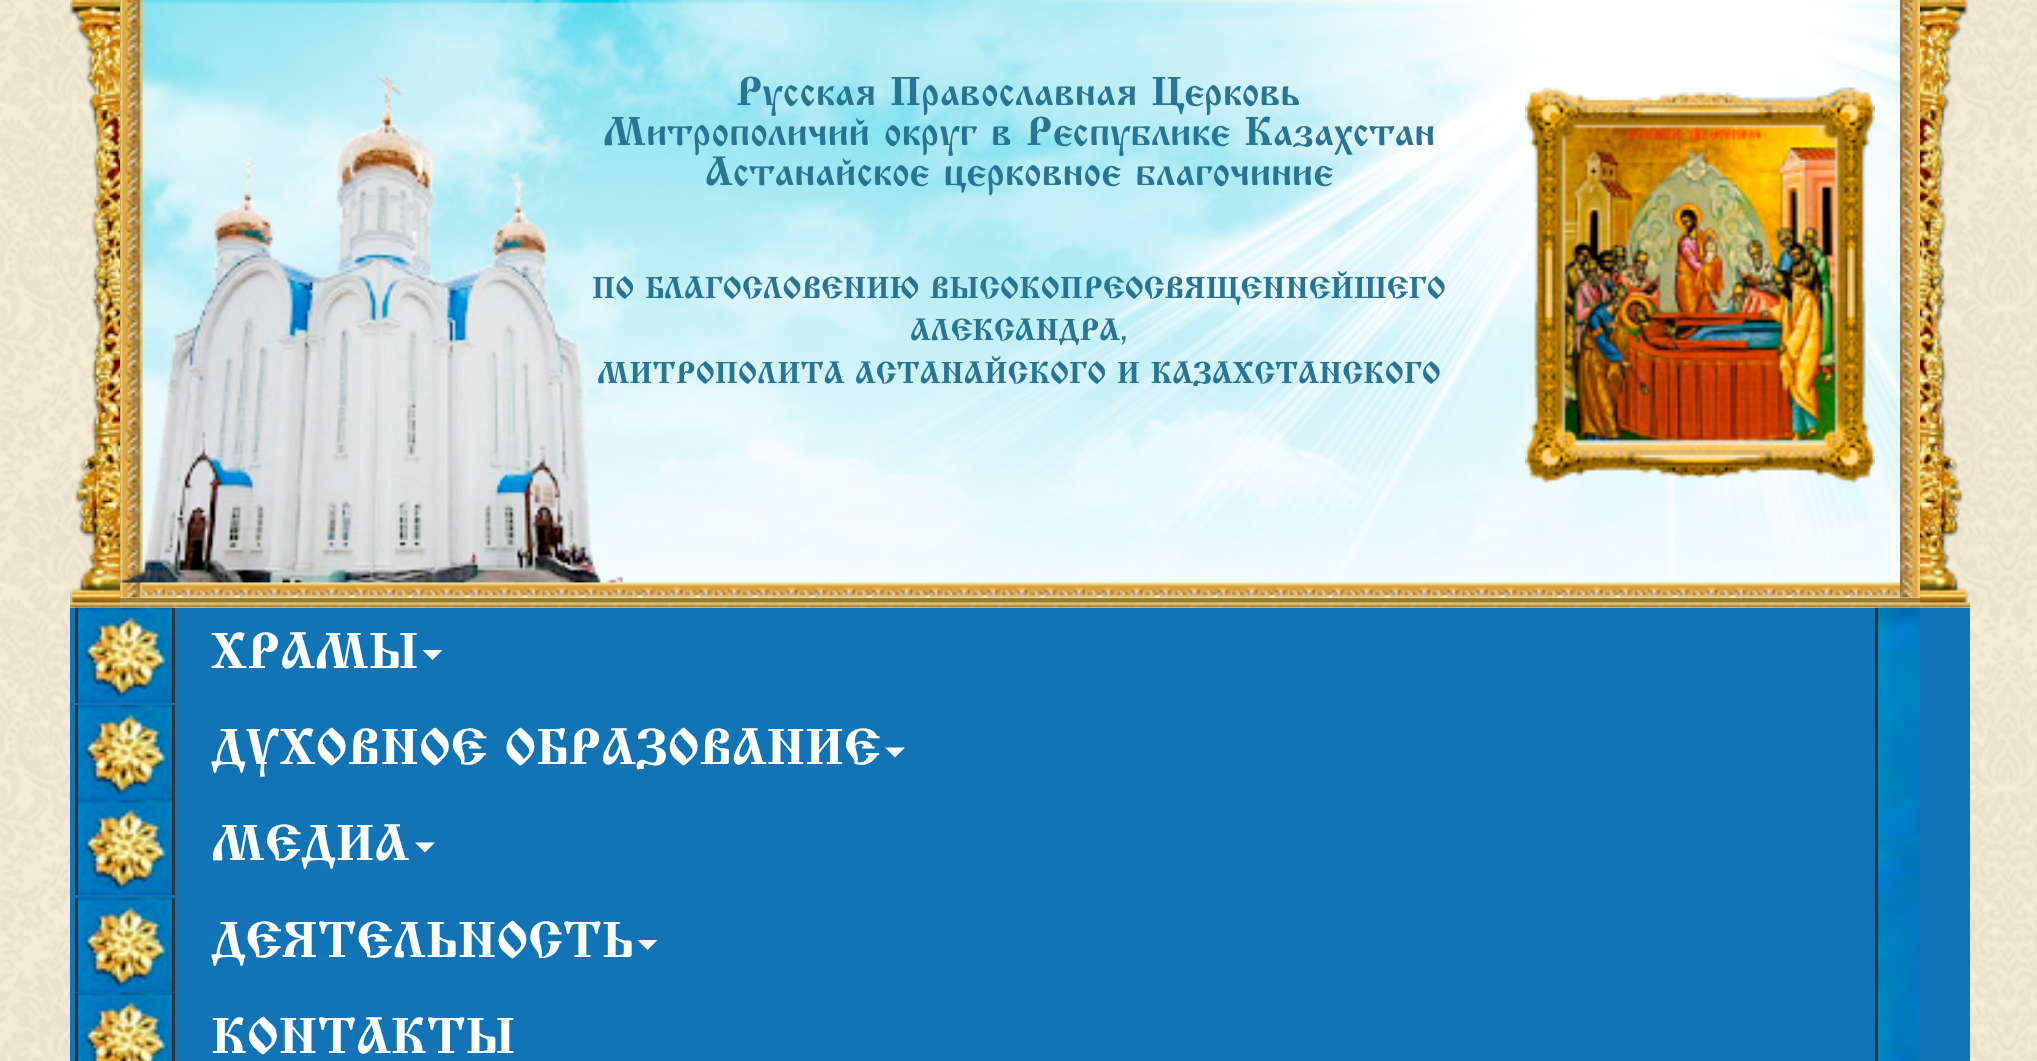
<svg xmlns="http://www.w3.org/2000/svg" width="2037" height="1061">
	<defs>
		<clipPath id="clip1"><rect x="75" y="608" width="100" height="95" /></clipPath>
		<clipPath id="clip2"><rect x="1875" y="608" width="45" height="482" /></clipPath>
		<clipPath id="clip3"><rect x="75" y="705" width="100" height="95" /></clipPath>
		<clipPath id="clip4"><rect x="75" y="800" width="100" height="95" /></clipPath>
		<clipPath id="clip5"><rect x="75" y="898" width="100" height="95" /></clipPath>
		<clipPath id="clip6"><rect x="75" y="993" width="100" height="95" /></clipPath>
	</defs>
	<rect width="100%" height="100%" fill="#FFFFFF" />
	<image x="0" y="0" width="2037" height="1061" href="assets/img1.png" />
	<image x="120" y="0" width="1800" height="598" href="assets/img2.png" />
	<rect x="120" y="598" width="1800" height="5" fill="#9A7E34" />
	<image x="70" y="0" width="50" height="608" href="assets/img3.png" />
	<image x="120" y="0" width="1800" height="598" href="assets/img4.png" />
	<image x="120" y="72" width="503" height="511" href="assets/img5.png" />
	<g font-family="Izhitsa" font-size="40" fill="#287493">
		<text x="736" y="105">Русская Православная Церковь</text>
		<text x="603" y="145">Митрополичий округ в Республике Казахстан</text>
		<text x="705" y="185">Астанайское церковное благочиние</text>
	</g>
	<g font-family="Izhitsa" font-size="30" fill="#287493">
		<text x="592" y="298">ПО БЛАГОСЛОВЕНИЮ ВЫСОКОПРЕОСВЯЩЕННЕЙШЕГО</text>
		<text x="910" y="340">АЛЕКСАНДРА,</text>
		<text x="597" y="383">МИТРОПОЛИТА АСТАНАЙСКОГО И КАЗАХСТАНСКОГО</text>
	</g>
	<image x="1525" y="87" width="350" height="396" href="assets/img6.png" />
	<image x="1920" y="0" width="49" height="608" href="assets/img7.png" />
	<image x="120" y="602" width="1800" height="6" href="assets/img8.png" />
	<image x="70" y="602" width="50" height="6" href="assets/img9.png" />
	<image x="1920" y="602" width="50" height="6" href="assets/img10.png" />
	<rect x="70" y="608" width="1805" height="453" fill="#1274B4" />
	<image x="75" y="607" width="100" height="96" href="assets/img11.png" />
	<g clip-path="url(#clip1)">
		<path d="M-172 360H422V950H-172ZM68 602H168C170 602 172 605 172 608V702C172 705 170 708 168 708H68C65 708 62 705 62 702V608C62 605 65 602 68 602Z" fill="#333333" fill-rule="evenodd" />
		<path d="M-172 360H422V950H-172ZM82 602H182C185 602 188 605 188 608V702C188 705 185 708 182 708H82C80 708 78 705 78 702V608C78 605 80 602 82 602Z" fill="#333333" fill-rule="evenodd" />
	</g>
	<text x="211" y="668" font-family="Izhitsa" font-size="50" fill="#FFFFFF">ХРАМЫ</text>
	<path d="M422.5 650H442.5L432.5 660Z" fill="#FFFFFF" />
	<image x="1875" y="607" width="45" height="454" href="assets/img12.png" />
	<g clip-path="url(#clip2)">
		<path d="M1628 360H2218V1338H1628ZM1882 602H1978C1980 602 1982 605 1982 608V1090C1982 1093 1980 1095 1978 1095H1882C1880 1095 1878 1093 1878 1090V608C1878 605 1880 602 1882 602Z" fill="#333333" fill-rule="evenodd" />
	</g>
	<image x="78" y="705" width="94" height="95" href="assets/img13.png" />
	<g clip-path="url(#clip3)">
		<path d="M-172 458H422V1048H-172ZM68 700H168C170 700 172 702 172 705V800C172 803 170 805 168 805H68C65 805 62 803 62 800V705C62 702 65 700 68 700Z" fill="#333333" fill-rule="evenodd" />
		<path d="M-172 458H422V1048H-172ZM82 700H182C185 700 188 702 188 705V800C188 803 185 805 182 805H82C80 805 78 803 78 800V705C78 702 80 700 82 700Z" fill="#333333" fill-rule="evenodd" />
	</g>
	<text x="211" y="764" font-family="Izhitsa" font-size="50" fill="#FFFFFF">ДУХОВНОЕ ОБРАЗОВАНИЕ</text>
	<path d="M885 747.5H905L895 757.5Z" fill="#FFFFFF" />
	<image x="78" y="800" width="94" height="95" href="assets/img13.png" />
	<g clip-path="url(#clip4)">
		<path d="M-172 552H422V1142H-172ZM68 795H168C170 795 172 797 172 800V895C172 898 170 900 168 900H68C65 900 62 898 62 895V800C62 797 65 795 68 795Z" fill="#333333" fill-rule="evenodd" />
		<path d="M-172 552H422V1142H-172ZM82 795H182C185 795 188 797 188 800V895C188 898 185 900 182 900H82C80 900 78 898 78 895V800C78 797 80 795 82 795Z" fill="#333333" fill-rule="evenodd" />
	</g>
	<text x="211" y="860" font-family="Izhitsa" font-size="50" fill="#FFFFFF">МЕДИА</text>
	<path d="M415 842.5H435L425 852.5Z" fill="#FFFFFF" />
	<image x="75" y="897" width="100" height="96" href="assets/img14.png" />
	<g clip-path="url(#clip5)">
		<path d="M-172 650H422V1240H-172ZM68 892H168C170 892 172 895 172 898V992C172 995 170 998 168 998H68C65 998 62 995 62 992V898C62 895 65 892 68 892Z" fill="#333333" fill-rule="evenodd" />
		<path d="M-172 650H422V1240H-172ZM82 892H182C185 892 188 895 188 898V992C188 995 185 998 182 998H82C80 998 78 995 78 992V898C78 895 80 892 82 892Z" fill="#333333" fill-rule="evenodd" />
	</g>
	<text x="211" y="957" font-family="Izhitsa" font-size="50" fill="#FFFFFF">ДЕЯТЕЛЬНОСТЬ</text>
	<path d="M637.5 940H657.5L647.5 950Z" fill="#FFFFFF" />
	<image x="75" y="992" width="100" height="69" href="assets/img15.png" />
	<g clip-path="url(#clip6)">
		<path d="M-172 745H422V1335H-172ZM68 988H168C170 988 172 990 172 992V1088C172 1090 170 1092 168 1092H68C65 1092 62 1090 62 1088V992C62 990 65 988 68 988Z" fill="#333333" fill-rule="evenodd" />
		<path d="M-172 745H422V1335H-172ZM82 988H182C185 988 188 990 188 992V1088C188 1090 185 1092 182 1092H82C80 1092 78 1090 78 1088V992C78 990 80 988 82 988Z" fill="#333333" fill-rule="evenodd" />
	</g>
	<text x="211" y="1053" font-family="Izhitsa" font-size="50" fill="#FFFFFF">КОНТАКТЫ</text>
	<rect x="1920" y="608" width="50" height="453" fill="#1274B4" />
</svg>
